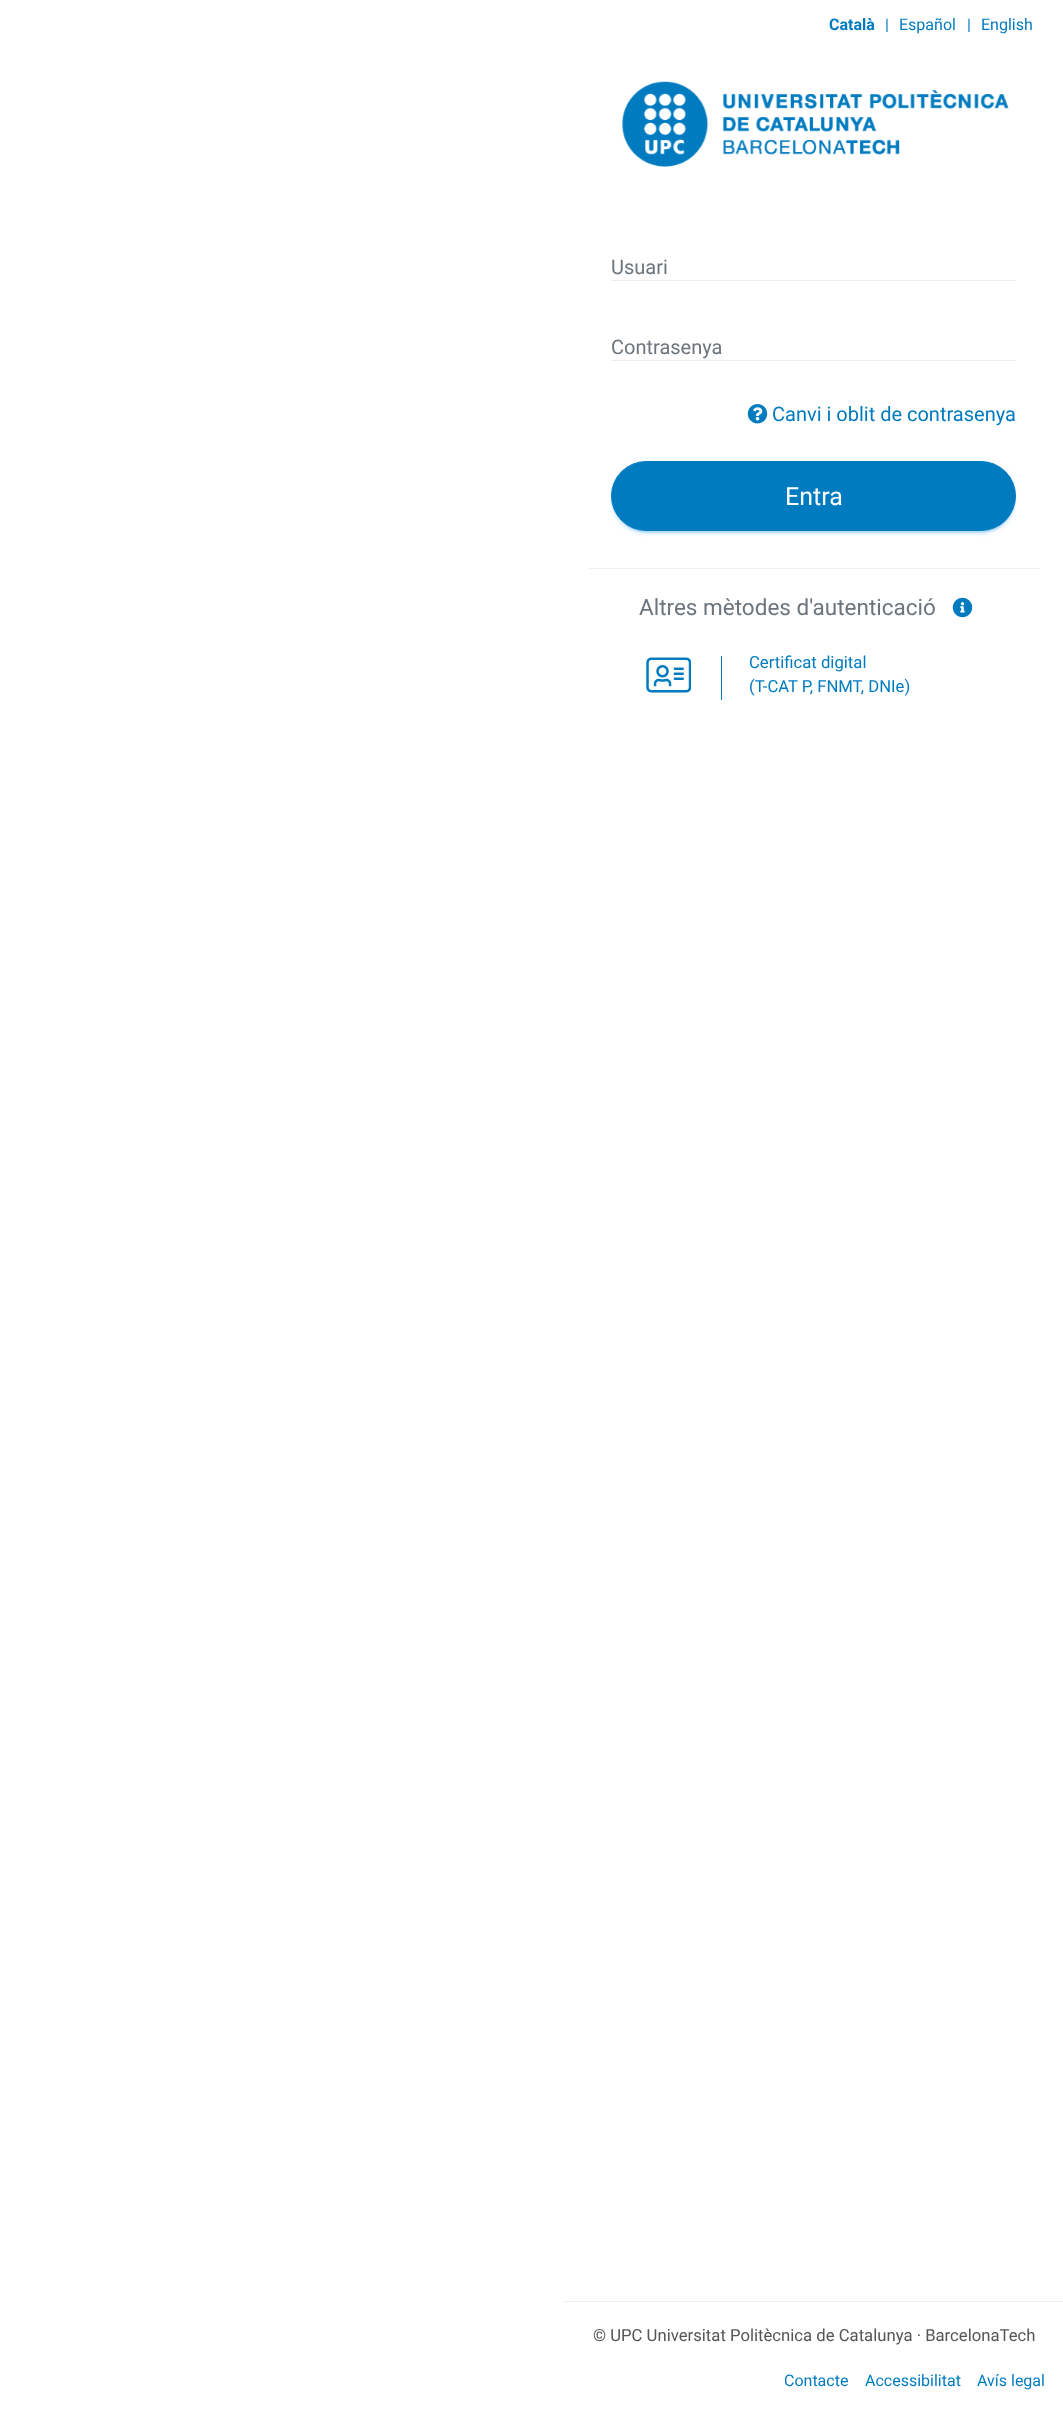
<svg xmlns="http://www.w3.org/2000/svg" width="1063" height="2433">
	<defs>
		<clipPath id="clip1"><rect x="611" y="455" width="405" height="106" /></clipPath>
	</defs>
	<rect width="100%" height="100%" fill="#FFFFFF" />
	<text x="829" y="30" font-family="Roboto" font-size="16" font-weight="700" fill="#007BC0">Català</text>
	<g font-family="Roboto" font-size="16" fill="#007BC0">
		<text x="885" y="30">|</text>
		<text x="899" y="30">Español</text>
		<text x="967" y="30">|</text>
		<text x="981" y="30">English</text>
	</g>
	<image x="622" y="81" width="387" height="86" href="assets/img1.png" />
	<rect x="611" y="280" width="405" height="1" fill="#E9EDF2" />
	<text x="611" y="274" font-family="Roboto" font-size="20" fill="#6C757D">Usuari</text>
	<rect x="611" y="360" width="405" height="1" fill="#E9EDF2" />
	<text x="611" y="354" font-family="Roboto" font-size="20" fill="#6C757D">Contrasenya</text>
	<image x="747" y="404" width="21" height="20" href="assets/img2.png" />
	<text x="772" y="421" font-family="Roboto" font-size="20" fill="#007BC0">Canvi i oblit de contrasenya</text>
	<g clip-path="url(#clip1)">
		<rect x="611" y="463" width="405" height="70" rx="35" fill="#42A5F5" fill-opacity="0.12" filter="blur(3px)" />
	</g>
	<rect x="614" y="468" width="400" height="65" rx="32.5" fill="#42A5F5" fill-opacity="0.2" filter="blur(0.5px)" />
	<rect x="611" y="464" width="405" height="70" rx="35" fill="#42A5F5" fill-opacity="0.14" filter="blur(1px)" />
	<rect x="611.5" y="461.5" width="404" height="69" rx="34.5" fill="#007BC0" stroke="#007BC0" />
	<text x="785" y="505" font-family="Roboto" font-size="25" fill="#FFFFFF">Entra</text>
	<rect x="589" y="568" width="450" height="1" fill="#EDEFF0" />
	<text x="639" y="615" font-family="Roboto" font-size="22.5" fill="#6C757D">Altres mètodes d'autenticació</text>
	<image x="952" y="597" width="21" height="21" href="assets/img3.png" />
	<rect x="721" y="656" width="1" height="44" fill="#007BC0" />
	<image x="646" y="657" width="45" height="36" href="assets/img4.png" />
	<g font-family="Roboto" font-size="16.7" fill="#007BC0">
		<text x="749" y="668">Certificat digital</text>
		<text x="749" y="692">(T-CAT P, FNMT, DNIe)</text>
	</g>
	<rect x="564" y="2301" width="499" height="1" fill="#EDEFF0" />
	<text x="593" y="2341" font-family="Roboto" font-size="16.7" fill="#555555">© UPC Universitat Politècnica de Catalunya · BarcelonaTech</text>
	<g font-family="Roboto" font-size="16" fill="#007BC0">
		<text x="784" y="2386">Contacte</text>
		<text x="865" y="2386">Accessibilitat</text>
		<text x="977" y="2386">Avís legal</text>
	</g>
</svg>
